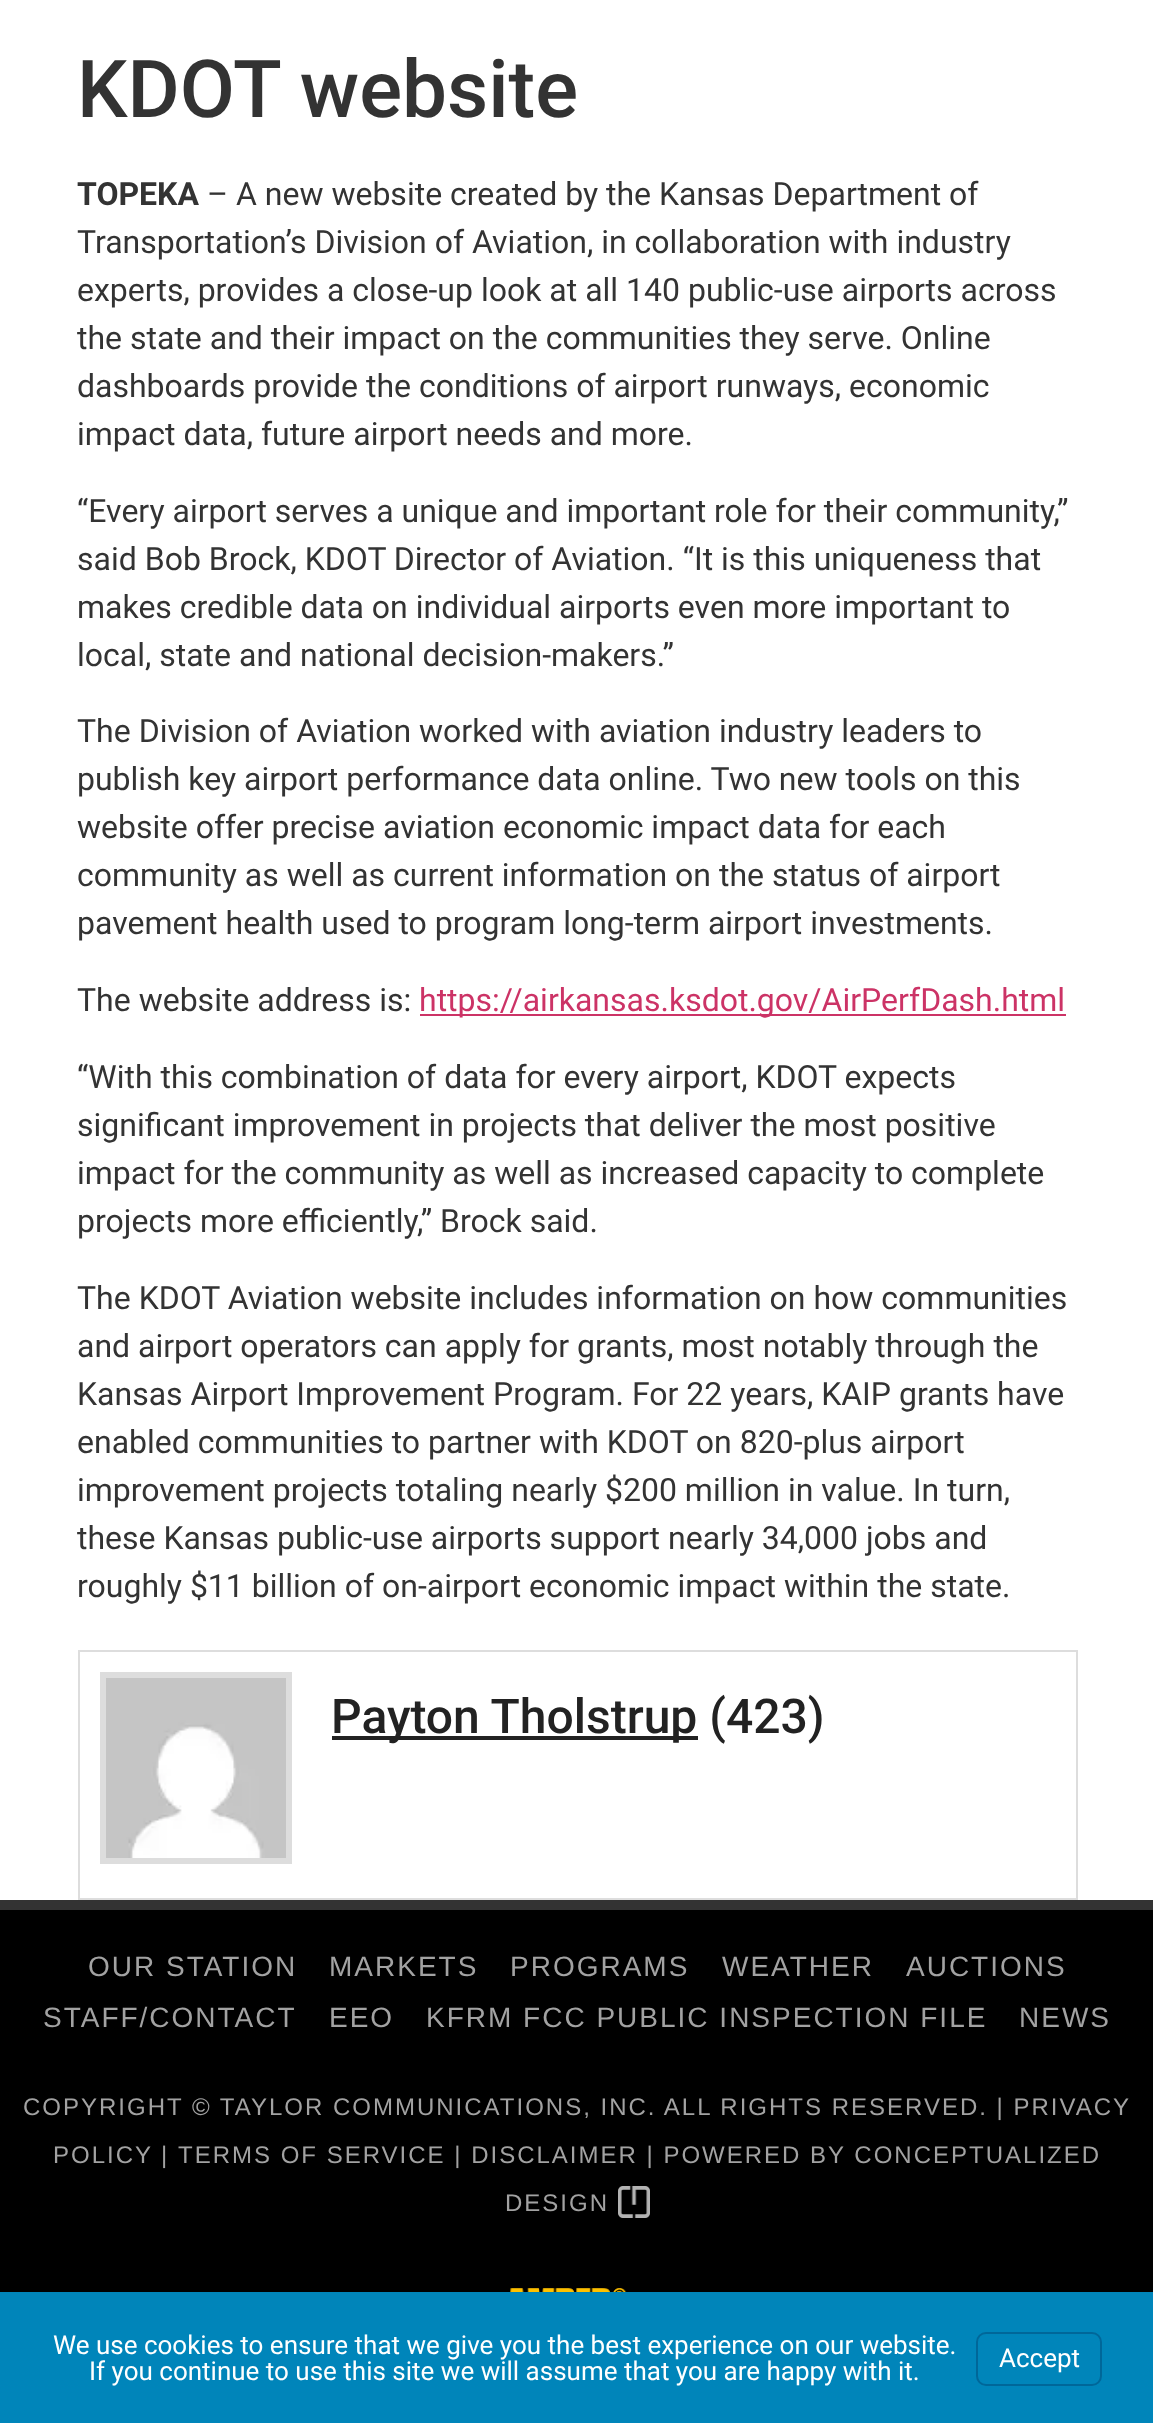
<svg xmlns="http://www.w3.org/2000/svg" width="1153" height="2423">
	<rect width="100%" height="100%" fill="#FFFFFF" />
	<text x="77" y="117" font-family="Roboto" font-size="80" font-weight="500" fill="#333333">KDOT website</text>
	<text x="77" y="205" font-family="Roboto" font-size="32" font-weight="700" fill="#333333">TOPEKA</text>
	<g font-family="Roboto" font-size="32" fill="#333333">
		<text x="207" y="205">– A new website created by the Kansas Department of</text>
		<text x="77" y="253">Transportation’s Division of Aviation, in collaboration with industry</text>
		<text x="77" y="301">experts, provides a close-up look at all 140 public-use airports across</text>
		<text x="77" y="349">the state and their impact on the communities they serve. Online</text>
		<text x="77" y="397">dashboards provide the conditions of airport runways, economic</text>
		<text x="77" y="445">impact data, future airport needs and more.</text>
		<text x="77" y="522">“Every airport serves a unique and important role for their community,”</text>
		<text x="77" y="570">said Bob Brock, KDOT Director of Aviation. “It is this uniqueness that</text>
		<text x="77" y="618">makes credible data on individual airports even more important to</text>
		<text x="77" y="666">local, state and national decision-makers.”</text>
		<text x="77" y="742">The Division of Aviation worked with aviation industry leaders to</text>
		<text x="77" y="790">publish key airport performance data online. Two new tools on this</text>
		<text x="77" y="838">website offer precise aviation economic impact data for each</text>
		<text x="77" y="886">community as well as current information on the status of airport</text>
		<text x="77" y="934">pavement health used to program long-term airport investments.</text>
		<text x="77" y="1011">The website address is:</text>
	</g>
	<rect x="420" y="1014" width="646" height="2" fill="#CC3366" />
	<text x="419" y="1011" font-family="Roboto" font-size="32" fill="#CC3366">https://airkansas.ksdot.gov/AirPerfDash.html</text>
	<g font-family="Roboto" font-size="32" fill="#333333">
		<text x="77" y="1088">“With this combination of data for every airport, KDOT expects</text>
		<text x="77" y="1136">significant improvement in projects that deliver the most positive</text>
		<text x="77" y="1184">impact for the community as well as increased capacity to complete</text>
		<text x="77" y="1232">projects more efficiently,” Brock said.</text>
		<text x="77" y="1309">The KDOT Aviation website includes information on how communities</text>
		<text x="77" y="1357">and airport operators can apply for grants, most notably through the</text>
		<text x="77" y="1405">Kansas Airport Improvement Program. For 22 years, KAIP grants have</text>
		<text x="77" y="1453">enabled communities to partner with KDOT on 820-plus airport</text>
		<text x="77" y="1501">improvement projects totaling nearly $200 million in value. In turn,</text>
		<text x="77" y="1549">these Kansas public-use airports support nearly 34,000 jobs and</text>
		<text x="77" y="1597">roughly $11 billion of on-airport economic impact within the state.</text>
	</g>
	<rect x="79" y="1651" width="998" height="248" fill="none" stroke="#DDDDDD" stroke-width="2" />
	<rect x="103" y="1675" width="186" height="186" fill="none" stroke="#DDDDDD" stroke-width="6" />
	<image x="106" y="1678" width="180" height="180" href="assets/img1.png" />
	<rect x="332" y="1736" width="366" height="4" fill="#222222" />
	<text x="331" y="1733" font-family="Roboto" font-size="48" font-weight="500" fill="#222222">Payton Tholstrup (423)</text>
	<rect x="0" y="1910" width="1153" height="382" fill="#000000" />
	<rect x="0" y="1900" width="1153" height="10" fill="#333333" />
	<g font-family="Liberation Sans" font-size="28" letter-spacing="2" fill="#A2A2A2">
		<text x="88" y="1976">OUR STATION</text>
		<text x="329" y="1976">MARKETS</text>
		<text x="510" y="1976">PROGRAMS</text>
		<text x="722" y="1976">WEATHER</text>
		<text x="906" y="1976">AUCTIONS</text>
		<text x="43" y="2027">STAFF/CONTACT</text>
		<text x="329" y="2027">EEO</text>
		<text x="426" y="2027">KFRM FCC PUBLIC INSPECTION FILE</text>
		<text x="1019" y="2027">NEWS</text>
	</g>
	<g font-family="Liberation Sans" font-size="24" letter-spacing="2" fill="#A2A2A2">
		<text x="23" y="2115">COPYRIGHT © TAYLOR COMMUNICATIONS, INC. ALL RIGHTS RESERVED. | PRIVACY</text>
		<text x="53" y="2163">POLICY</text>
		<text x="161" y="2163">|</text>
		<text x="178" y="2163">TERMS OF SERVICE | DISCLAIMER | POWERED BY CONCEPTUALIZED</text>
		<text x="505" y="2211">DESIGN</text>
	</g>
	<image x="618" y="2186" width="32" height="32" href="assets/img2.png" />
	<image x="510" y="2288" width="117" height="4" href="assets/img3.png" />
	<rect x="0" y="2292" width="1153" height="131" fill="#0085BA" />
	<g font-family="Roboto" font-size="26" fill="#FFFFFF">
		<text x="53" y="2354">We use cookies to ensure that we give you the best experience on our website.</text>
		<text x="89" y="2380">If you continue to use this site we will assume that you are happy with it.</text>
	</g>
	<rect x="977" y="2333" width="124" height="52" rx="9" fill="none" stroke="#006799" stroke-width="2" />
	<text x="999" y="2367" font-family="Roboto" font-size="26" fill="#FFFFFF">Accept</text>
</svg>
